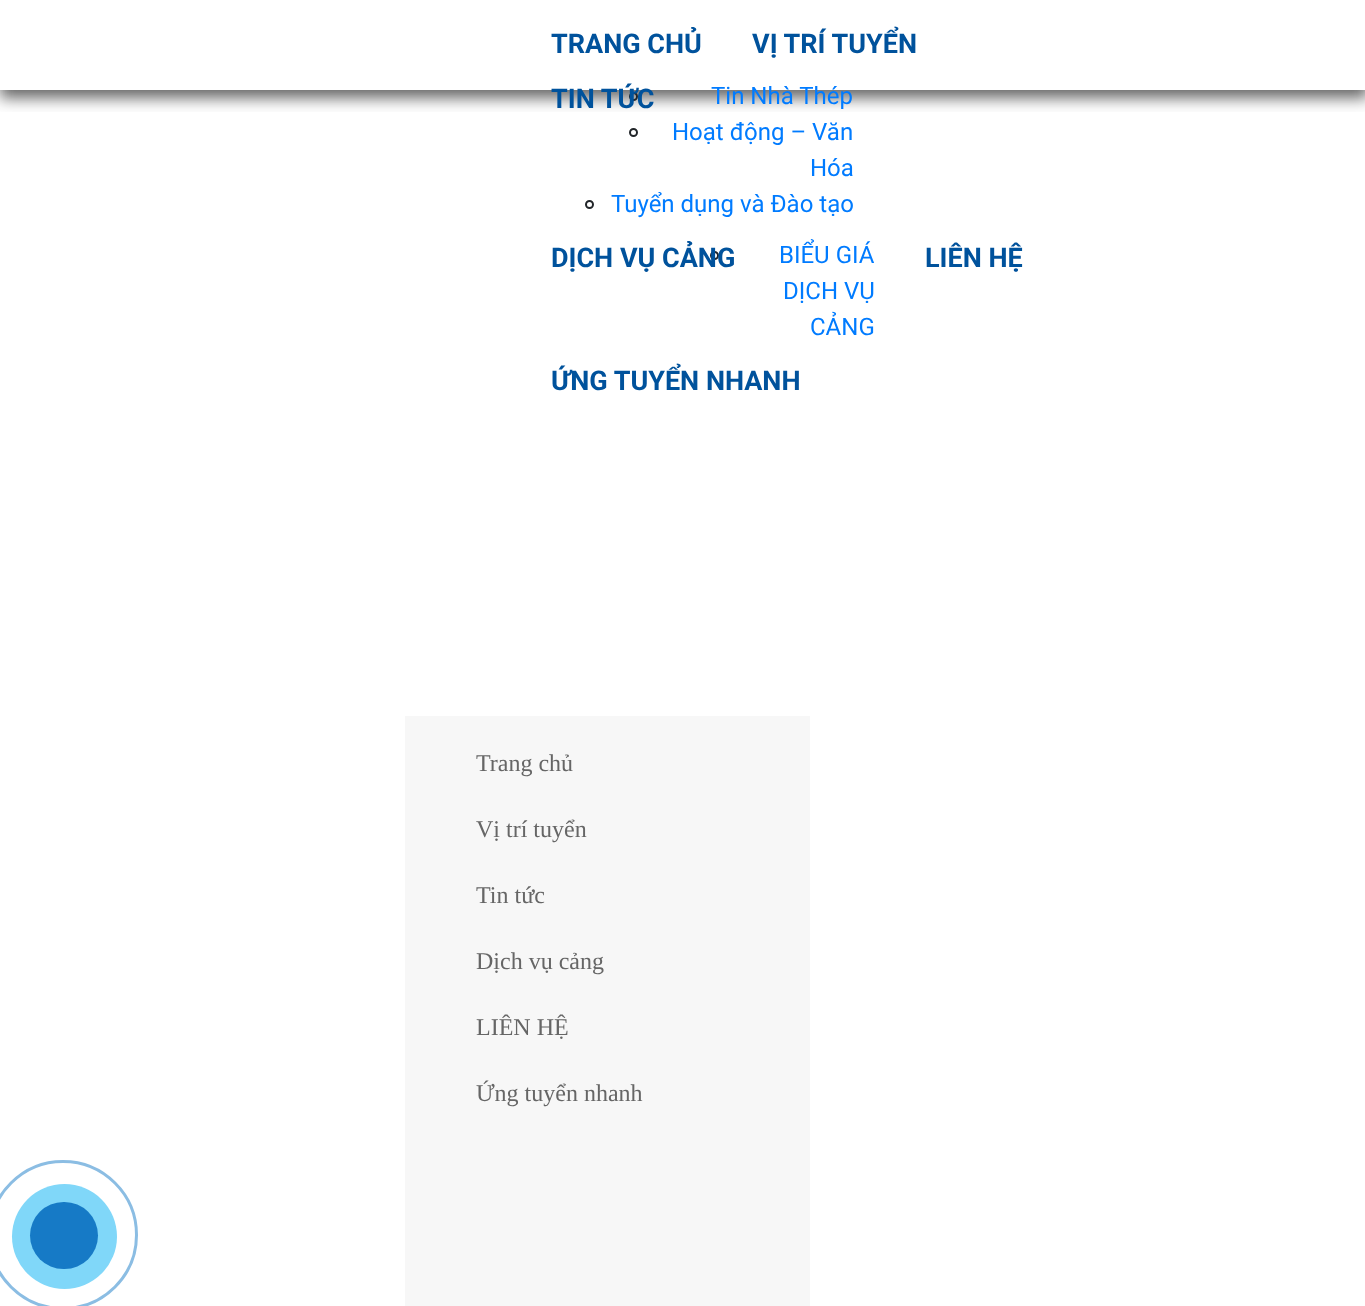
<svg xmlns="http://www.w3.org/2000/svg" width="1365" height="1306">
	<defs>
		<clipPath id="clip1"><rect x="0" y="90" width="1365" height="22" /></clipPath>
	</defs>
	<rect width="100%" height="100%" fill="#FFFFFF" />
	<g clip-path="url(#clip1)">
		<rect x="0" y="5" width="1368" height="93" fill="#131212" fill-opacity="0.65" filter="blur(7.5px)" />
	</g>
	<g font-family="Roboto" font-size="27" font-weight="700" fill="#00529C">
		<text x="551" y="53">TRANG CHỦ</text>
		<text x="752" y="53">VỊ TRÍ TUYỂN</text>
	</g>
	<circle cx="633.5" cy="96.5" r="3.5" fill="none" stroke="#212529" stroke-width="2" />
	<text x="551" y="108" font-family="Roboto" font-size="27" font-weight="700" fill="#00529C">TIN TỨC</text>
	<text x="711" y="104" font-family="Roboto" font-size="24" fill="#007BFF">Tin Nhà Thép</text>
	<circle cx="633.5" cy="132.5" r="3.5" fill="none" stroke="#212529" stroke-width="2" />
	<g font-family="Roboto" font-size="24" fill="#007BFF">
		<text x="672" y="140">Hoạt động – Văn</text>
		<text x="810" y="176">Hóa</text>
	</g>
	<circle cx="589.5" cy="204.5" r="3.5" fill="none" stroke="#212529" stroke-width="2" />
	<text x="611" y="212" font-family="Roboto" font-size="24" fill="#007BFF">Tuyển dụng và Đào tạo</text>
	<circle cx="714.5" cy="255.5" r="3.5" fill="none" stroke="#212529" stroke-width="2" />
	<text x="551" y="267" font-family="Roboto" font-size="27" font-weight="700" fill="#00529C">DỊCH VỤ CẢNG</text>
	<g font-family="Roboto" font-size="24" fill="#007BFF">
		<text x="779" y="263">BIỂU GIÁ</text>
		<text x="783" y="299">DỊCH VỤ</text>
		<text x="810" y="335">CẢNG</text>
	</g>
	<g font-family="Roboto" font-size="27" font-weight="700" fill="#00529C">
		<text x="925" y="267">LIÊN HỆ</text>
		<text x="551" y="390">ỨNG TUYỂN NHANH</text>
	</g>
	<rect x="405" y="716" width="405" height="590" fill="#F7F7F7" />
	<g font-family="Liberation Serif" font-size="24" fill="#666666">
		<text x="476" y="771">Trang chủ</text>
		<text x="476" y="837">Vị trí tuyển</text>
		<text x="476" y="903">Tin tức</text>
		<text x="476" y="969">Dịch vụ cảng</text>
		<text x="476" y="1035">LIÊN HỆ</text>
		<text x="476" y="1101">Ứng tuyển nhanh</text>
	</g>
	<circle cx="63" cy="1235" r="73.5" fill="none" stroke="#8BBDE3" stroke-width="3" />
	<circle cx="64.5" cy="1236.5" r="52.5" fill="#80D7F9" />
	<rect x="30" y="1202" width="68" height="67" rx="33.5" fill="#167AC6" />
</svg>
